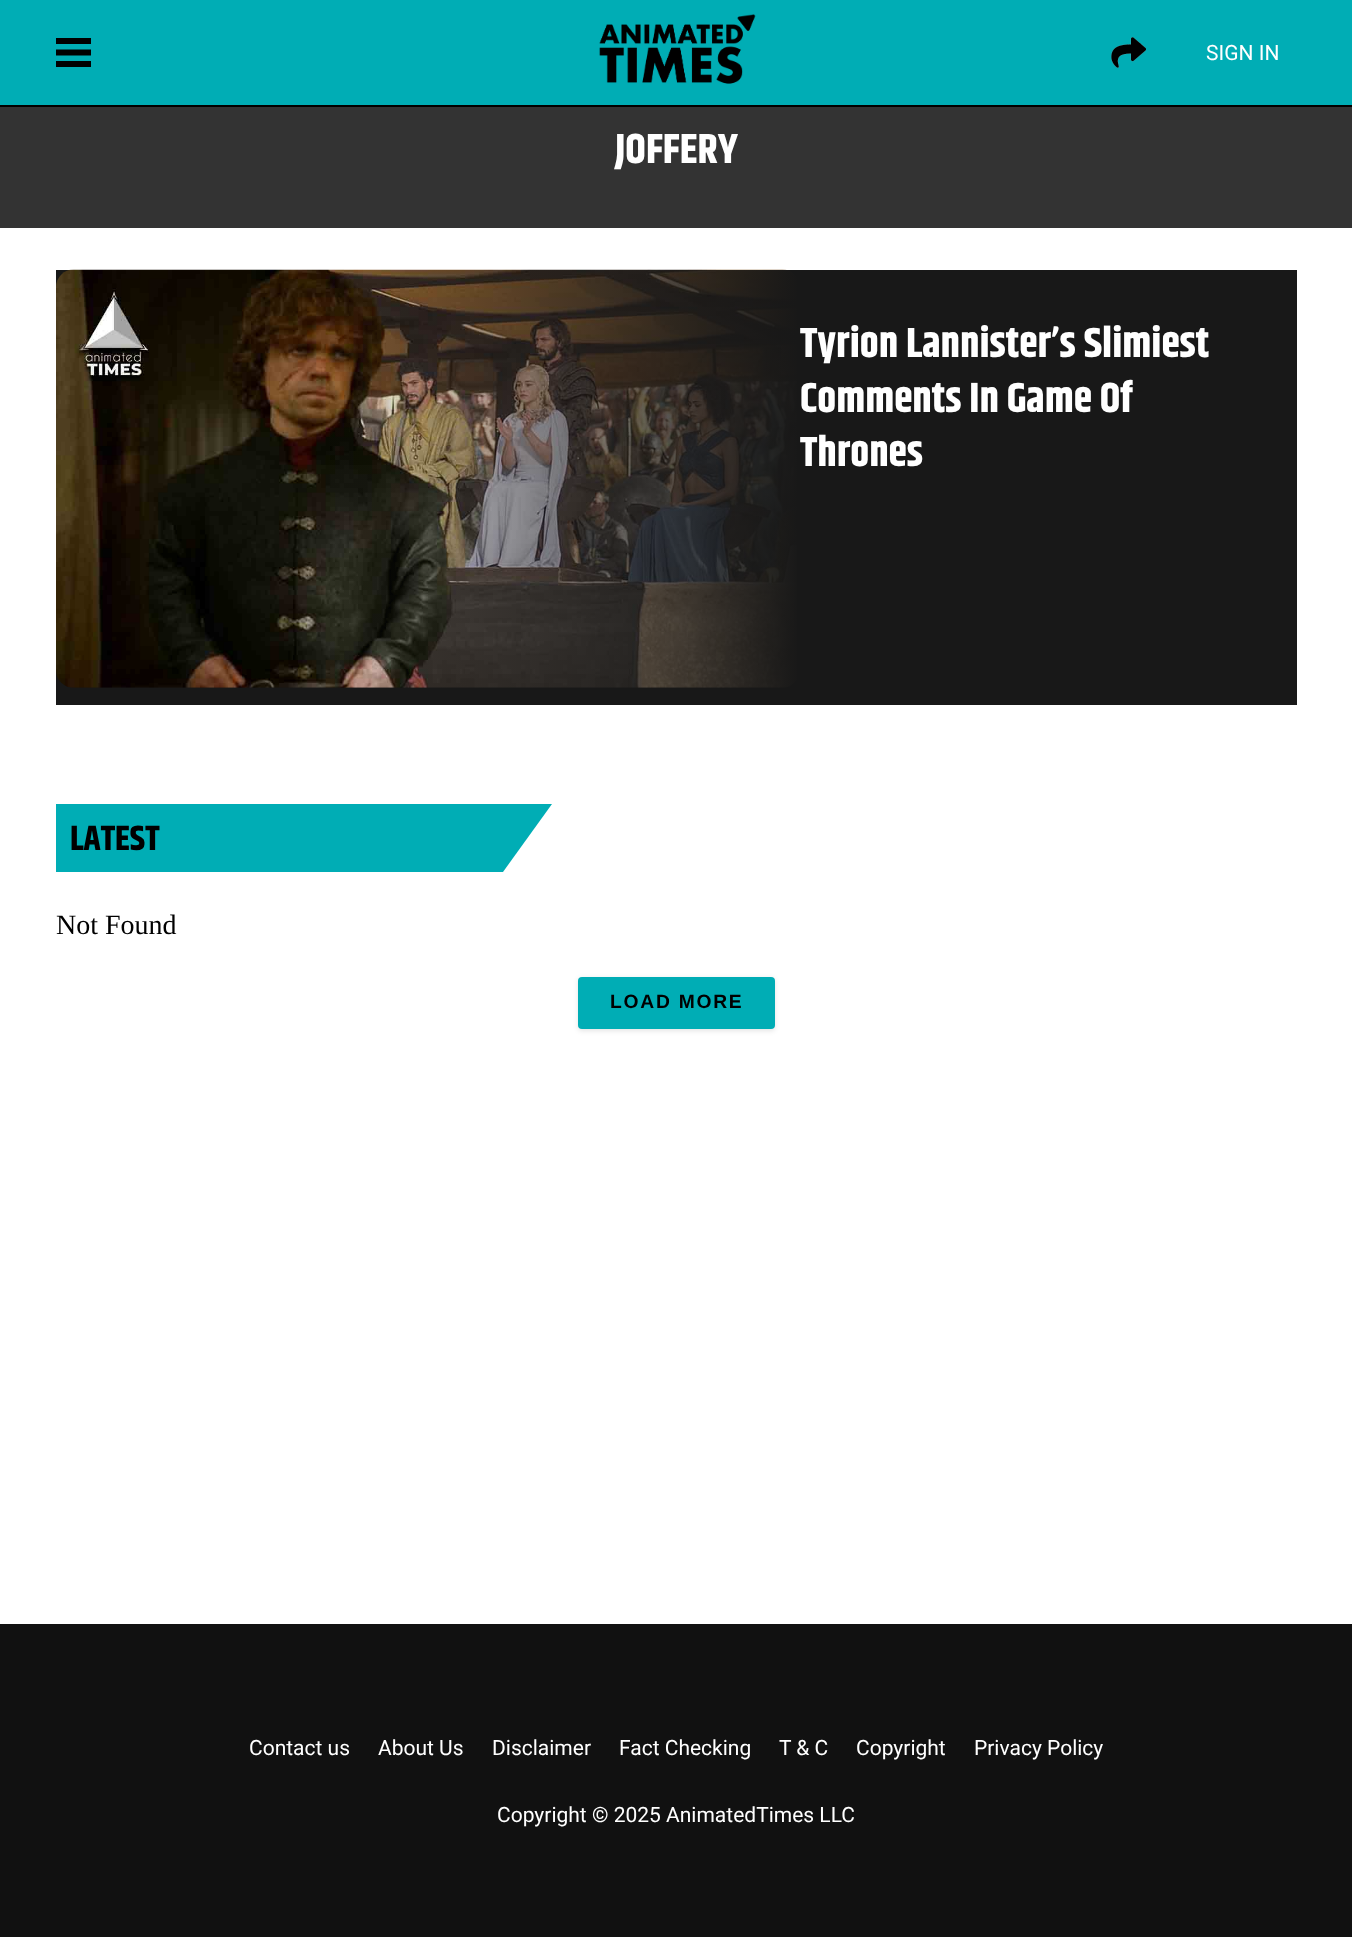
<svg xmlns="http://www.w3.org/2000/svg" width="1352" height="1937">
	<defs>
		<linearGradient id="g1" gradientUnits="userSpaceOnUse" x1="317" y1="487" x2="800" y2="487"><stop offset="0" stop-color="#181818" stop-opacity="0" /><stop offset="1" stop-color="#181818" /></linearGradient>
	</defs>
	<rect width="100%" height="100%" fill="#FFFFFF" />
	<rect x="0" y="0" width="1352" height="105" fill="#00ADB5" />
	<rect x="0" y="105" width="1352" height="2" fill="#000000" />
	<path d="M91 44H56V38H91ZM91 49.5H56V55.5H91ZM91 61H56V67H91Z" fill="#000000" />
	<image x="599" y="14" width="157" height="70" href="assets/img1.png" />
	<image x="1111" y="37" width="35" height="31" href="assets/img2.png" />
	<text x="1206" y="60" font-family="Roboto" font-size="21" fill="#FFFFFF">SIGN IN</text>
	<rect x="0" y="107" width="1352" height="121" fill="#333333" />
	<text x="615" y="163" font-family="Khand" font-size="42" font-weight="700" fill="#FFFFFF">JOFFERY</text>
	<rect x="56" y="270" width="1241" height="435" fill="#181818" />
	<image x="56" y="269" width="741" height="419" href="assets/img3.png" />
	<rect x="329" y="270" width="468" height="418" fill="url(#g1)" />
	<g font-family="Khand" font-size="42" font-weight="700" fill="#FFFFFF">
		<text x="800" y="357">Tyrion Lannister’s Slimiest</text>
		<text x="800" y="412">Comments In Game Of</text>
		<text x="800" y="466">Thrones</text>
	</g>
	<path d="M56 804V872H503L552 804Z" fill="#00ADB5" />
	<text x="70" y="850" font-family="Khand" font-size="35" font-weight="700" fill="#000000">LATEST</text>
	<text x="56" y="934" font-family="Liberation Serif" font-size="28" fill="#000000">Not Found</text>
	<rect x="578" y="978" width="197" height="53" rx="4" fill="#000000" fill-opacity="0.1" filter="blur(2.5px)" />
	<rect x="578" y="977" width="197" height="52" rx="4" fill="#00ADB5" />
	<text x="610" y="1008" font-family="Liberation Sans" font-size="19.25" font-weight="700" letter-spacing="1.75" fill="#000000">LOAD MORE</text>
	<rect x="0" y="1624" width="1352" height="313" fill="#111111" />
	<g font-family="Roboto" font-size="21" fill="#FFFFFF">
		<text x="249" y="1755">Contact us</text>
		<text x="378" y="1755">About Us</text>
		<text x="492" y="1755">Disclaimer</text>
		<text x="619" y="1755">Fact Checking</text>
		<text x="779" y="1755">T &amp; C</text>
		<text x="856" y="1755">Copyright</text>
		<text x="974" y="1755">Privacy Policy</text>
		<text x="497" y="1822">Copyright © 2025 AnimatedTimes LLC</text>
	</g>
</svg>
